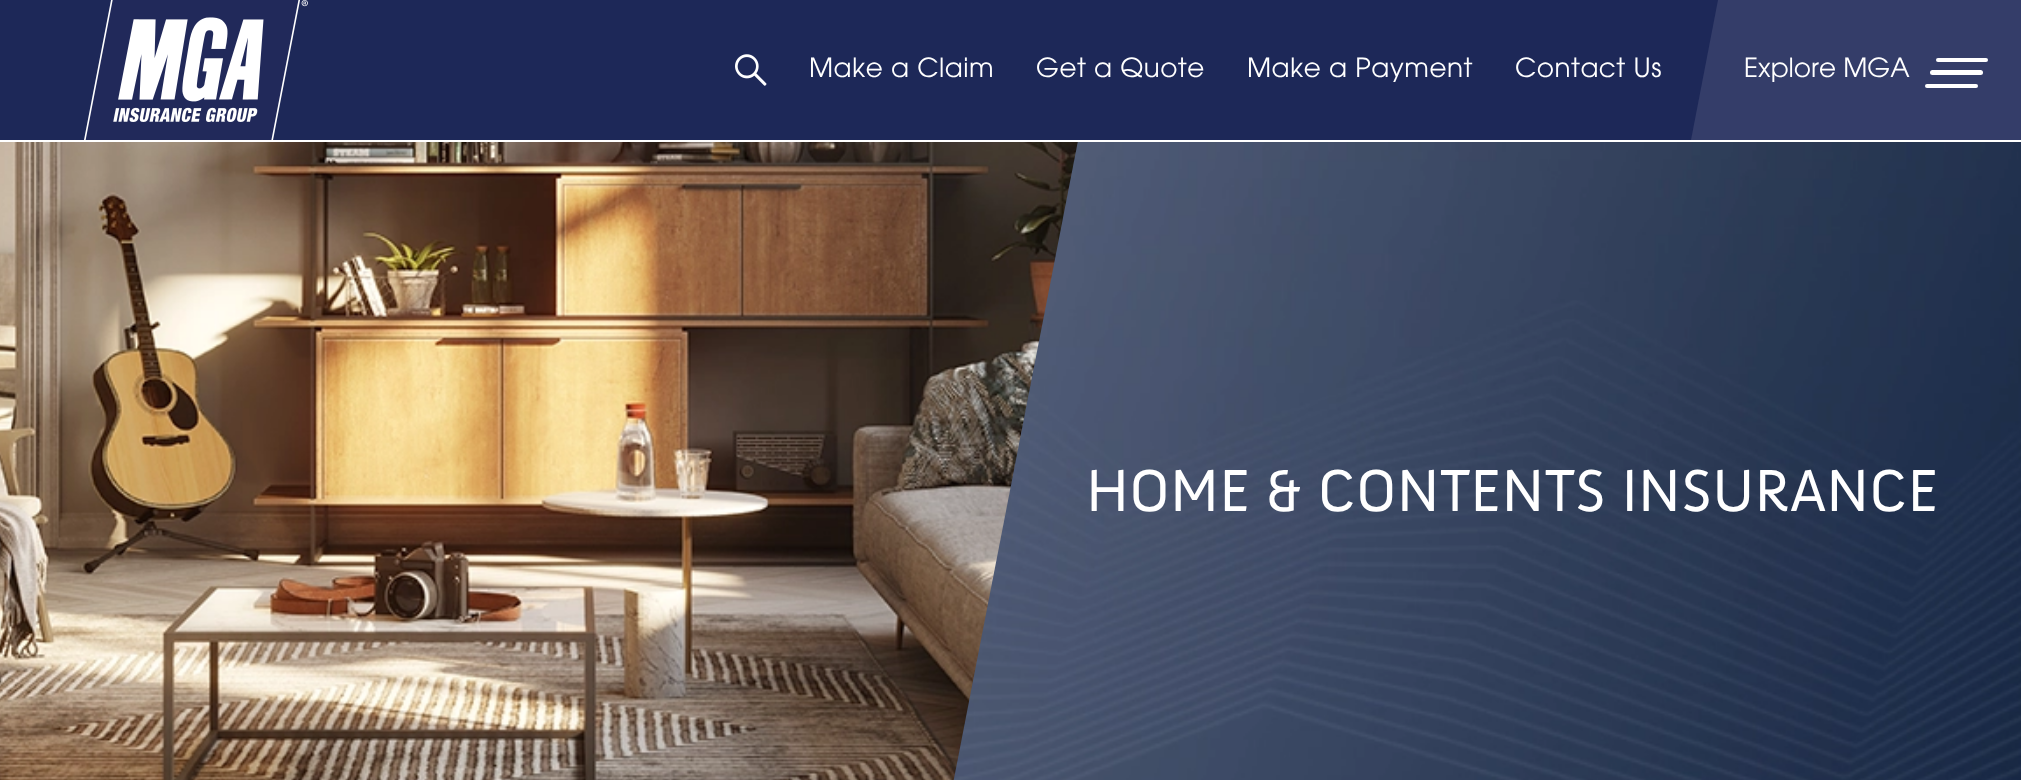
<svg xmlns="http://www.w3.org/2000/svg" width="2021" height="780">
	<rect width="100%" height="100%" fill="#FFFFFF" />
	<rect x="0" y="0" width="1718" height="140" fill="#1D2858" />
	<image x="84" y="0" width="224" height="140" href="assets/img1.png" />
	<image x="735" y="54" width="32" height="32" href="assets/img2.png" />
	<g font-family="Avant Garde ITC" font-size="26.25" letter-spacing="0.5" fill="#FFFFFF">
		<text x="809" y="77">Make a Claim</text>
		<text x="1036" y="77">Get a Quote</text>
		<text x="1247" y="77">Make a Payment</text>
		<text x="1515" y="77">Contact Us</text>
	</g>
	<path d="M1718 0H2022L1995 140H1691Z" fill="#343D69" />
	<rect x="1995" y="5" width="26" height="135" fill="#343D69" />
	<text x="1744" y="77" font-family="Avant Garde ITC" font-size="26.25" fill="#FFFFFF">Explore MGA</text>
	<rect x="1936" y="58" width="52" height="4" rx="2" fill="#FFFFFF" />
	<rect x="1930" y="70" width="53" height="5" rx="2.5" fill="#FFFFFF" />
	<rect x="1925" y="84" width="53" height="4" rx="2" fill="#FFFFFF" />
	<image x="953" y="142" width="1068" height="638" href="assets/img3.png" />
	<image x="0" y="142" width="1078" height="638" href="assets/img4.png" />
	<text x="1086" y="511" font-family="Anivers" font-size="60.6" letter-spacing="0.25" fill="#FFFFFF">HOME &amp; CONTENTS INSURANCE</text>
</svg>
